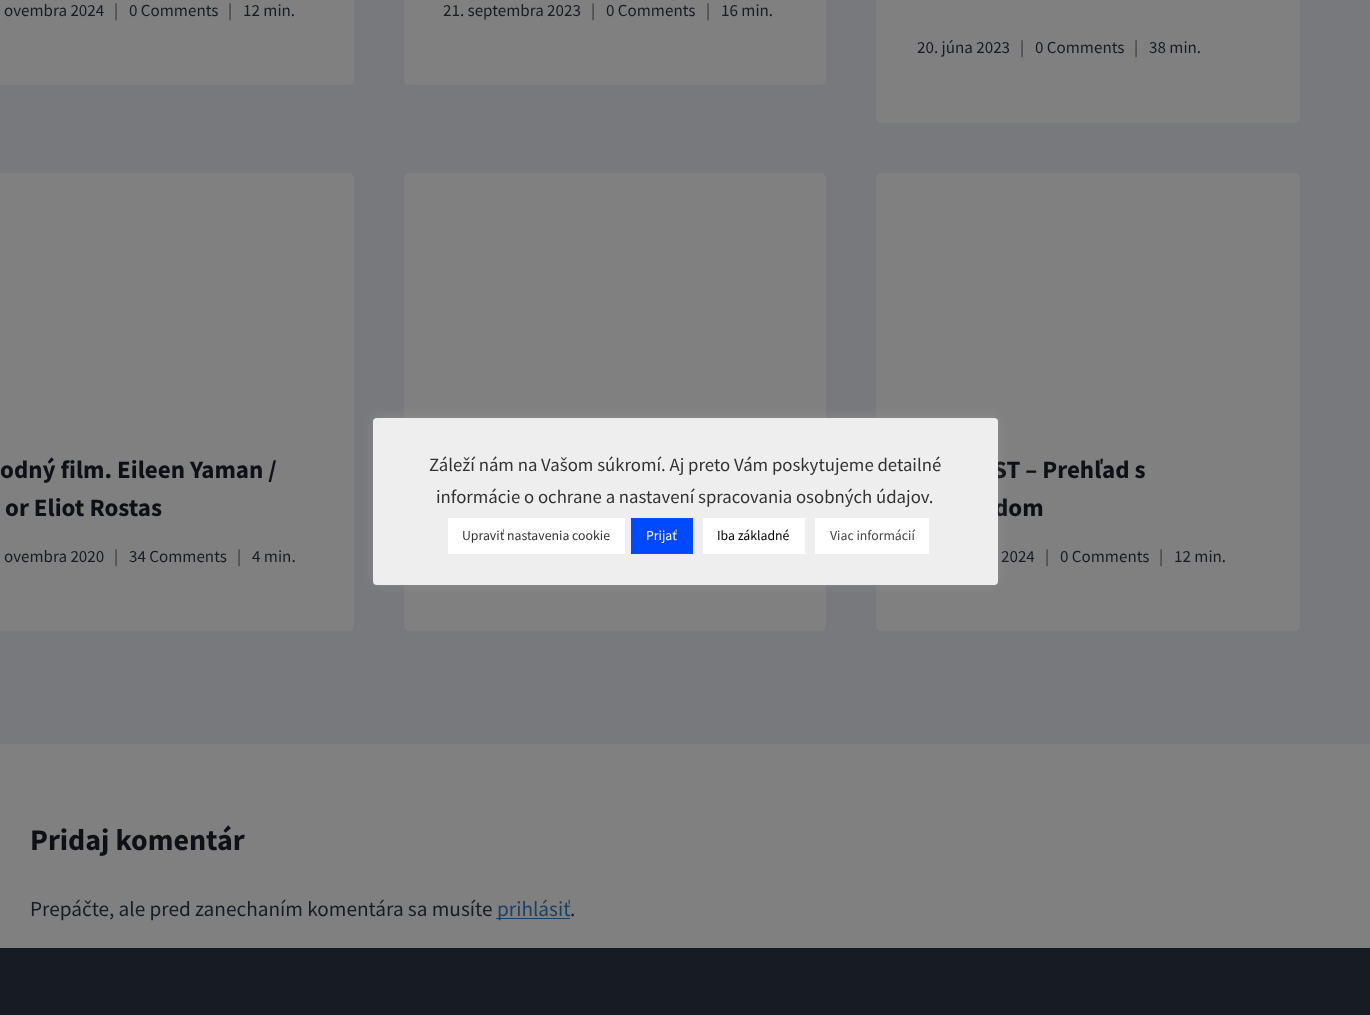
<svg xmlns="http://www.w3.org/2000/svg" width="1370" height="1015">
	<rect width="100%" height="100%" fill="#808080" />
	<rect x="0" y="0" width="1370" height="744" fill="#77797C" />
	<path d="M0-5H349C352-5 354-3 354 0V80C354 83 352 85 349 85H0Z" fill="#808080" />
	<text x="4" y="16" font-family="Source Sans Pro" font-size="17" fill="#171C24">ovembra 2024</text>
	<text x="114" y="16" font-family="Source Sans Pro" font-size="17" fill="#2C3037">|</text>
	<text x="129" y="16" font-family="Source Sans Pro" font-size="17" fill="#171C24">0 Comments</text>
	<text x="228" y="16" font-family="Source Sans Pro" font-size="17" fill="#2C3037">|</text>
	<text x="243" y="16" font-family="Source Sans Pro" font-size="17" fill="#171C24">12 min.</text>
	<rect x="404" y="-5" width="422" height="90" rx="5" fill="#808080" />
	<text x="443" y="16" font-family="Source Sans Pro" font-size="17" fill="#171C24">21. septembra 2023</text>
	<text x="591" y="16" font-family="Source Sans Pro" font-size="17" fill="#2C3037">|</text>
	<text x="606" y="16" font-family="Source Sans Pro" font-size="17" fill="#171C24">0 Comments</text>
	<text x="706" y="16" font-family="Source Sans Pro" font-size="17" fill="#2C3037">|</text>
	<text x="721" y="16" font-family="Source Sans Pro" font-size="17" fill="#171C24">16 min.</text>
	<rect x="876" y="-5" width="424" height="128" rx="5" fill="#808080" />
	<text x="917" y="53" font-family="Source Sans Pro" font-size="17" fill="#171C24">20. júna 2023</text>
	<text x="1020" y="53" font-family="Source Sans Pro" font-size="17" fill="#2C3037">|</text>
	<text x="1035" y="53" font-family="Source Sans Pro" font-size="17" fill="#171C24">0 Comments</text>
	<text x="1134" y="53" font-family="Source Sans Pro" font-size="17" fill="#2C3037">|</text>
	<text x="1149" y="53" font-family="Source Sans Pro" font-size="17" fill="#171C24">38 min.</text>
	<path d="M0 173H349C352 173 354 175 354 178V626C354 629 352 631 349 631H0Z" fill="#808080" />
	<g font-family="Source Sans Pro" font-size="25" font-weight="700" fill="#0D1016">
		<text x="0" y="478">odný film. Eileen Yaman /</text>
		<text x="5" y="516">or Eliot Rostas</text>
	</g>
	<text x="4" y="562" font-family="Source Sans Pro" font-size="17" fill="#171C24">ovembra 2020</text>
	<text x="114" y="562" font-family="Source Sans Pro" font-size="17" fill="#2C3037">|</text>
	<text x="129" y="562" font-family="Source Sans Pro" font-size="17" fill="#171C24">34 Comments</text>
	<text x="237" y="562" font-family="Source Sans Pro" font-size="17" fill="#2C3037">|</text>
	<text x="252" y="562" font-family="Source Sans Pro" font-size="17" fill="#171C24">4 min.</text>
	<rect x="404" y="173" width="422" height="458" rx="5" fill="#808080" />
	<rect x="876" y="173" width="424" height="458" rx="5" fill="#808080" />
	<g font-family="Source Sans Pro" font-size="25" font-weight="700" fill="#0D1016">
		<text x="993" y="478">ST – Prehľad s</text>
		<text x="994" y="516">dom</text>
	</g>
	<text x="1001" y="562" font-family="Source Sans Pro" font-size="17" fill="#171C24">2024</text>
	<text x="1045" y="562" font-family="Source Sans Pro" font-size="17" fill="#2C3037">|</text>
	<text x="1060" y="562" font-family="Source Sans Pro" font-size="17" fill="#171C24">0 Comments</text>
	<text x="1159" y="562" font-family="Source Sans Pro" font-size="17" fill="#2C3037">|</text>
	<text x="1174" y="562" font-family="Source Sans Pro" font-size="17" fill="#171C24">12 min.</text>
	<text x="30" y="850" font-family="Source Sans Pro" font-size="30" font-weight="700" fill="#0D1016">Pridaj komentár</text>
	<text x="30" y="916" font-family="Source Sans Pro" font-size="21.25" fill="#171C24">Prepáčte, ale pred zanechaním komentára sa musíte</text>
	<rect x="496" y="918" width="74" height="1" fill="#194167" />
	<text x="497" y="916" font-family="Source Sans Pro" font-size="21.25" fill="#194167">prihlásiť</text>
	<text x="570" y="916" font-family="Source Sans Pro" font-size="21.25" fill="#171C24">.</text>
	<rect x="0" y="948" width="1370" height="67" fill="#171C24" />
	<rect x="373" y="416" width="625" height="168" rx="4" fill="#ACABAB" fill-opacity="0.3" filter="blur(6px)" />
	<rect x="373" y="418" width="625" height="167" rx="4" fill="#EEEEEE" />
	<g font-family="Source Sans Pro" font-size="18.75" fill="#333333">
		<text x="429" y="471">Záleží nám na Vašom súkromí. Aj preto Vám poskytujeme detailné</text>
		<text x="436" y="503">informácie o ochrane a nastavení spracovania osobných údajov.</text>
	</g>
	<rect x="448" y="518" width="177" height="36" fill="#FFFFFF" />
	<text x="462" y="540" font-family="Source Sans Pro" font-size="13.75" fill="#333333">Upraviť nastavenia cookie</text>
	<rect x="631" y="518" width="62" height="36" fill="#0049FF" />
	<text x="646" y="540" font-family="Source Sans Pro" font-size="13.75" fill="#FFFFFF">Prijať</text>
	<rect x="703" y="518" width="102" height="36" fill="#FFFFFF" />
	<text x="717" y="540" font-family="Source Sans Pro" font-size="13.75" fill="#000000">Iba základné</text>
	<rect x="815" y="518" width="114" height="36" fill="#FFFFFF" />
	<text x="830" y="540" font-family="Source Sans Pro" font-size="13.75" fill="#444444">Viac informácií</text>
</svg>
